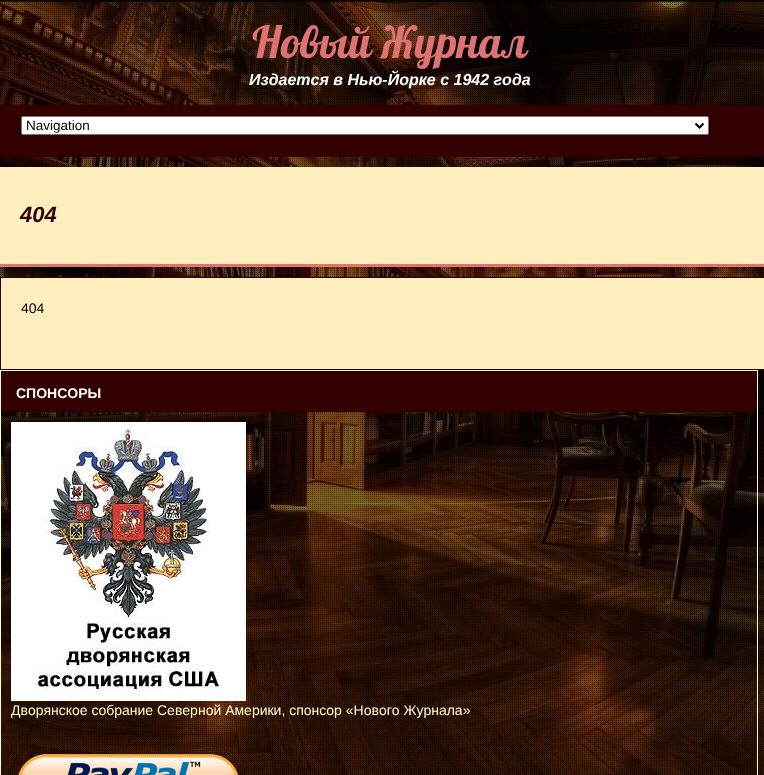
<svg xmlns="http://www.w3.org/2000/svg" width="764" height="775">
	<style>*{font-kerning:none!important;font-variant-ligatures:none!important}</style>
	<rect width="100%" height="100%" fill="#FFFFFF" />
	<image x="0" y="0" width="764" height="775" href="assets/img1.png" />
	<image x="0" y="0" width="764" height="775" href="assets/img2.png" />
	<text x="252" y="58" font-family="Lobster" font-size="44" fill="#DD7373">Новый Журнал</text>
	<text x="249" y="85" font-family="Liberation Sans" font-size="16" font-weight="700" font-style="italic" fill="#FFFFFF">Издается в Нью-Йорке с 1942 года</text>
	<rect x="0" y="105" width="764" height="52" fill="#320001" />
	<rect x="21.5" y="116.5" width="687" height="18" rx="1.5" fill="#FFFFFF" stroke="#767676" />
	<path d="M695.5 123.5L699.5 127.5L703.5 123.5" fill="none" stroke="#000000" stroke-width="2" />
	<text x="26" y="130" font-family="Liberation Sans" font-size="13.5" fill="#000000">Navigation</text>
	<rect x="0" y="167" width="764" height="97" fill="#FFEFBF" />
	<rect x="0" y="264" width="764" height="3" fill="#DD7373" />
	<text x="20" y="222" font-family="Liberation Sans" font-size="22" font-weight="700" font-style="italic" fill="#320001">404</text>
	<rect x="1" y="339" width="763" height="30" fill="#FFEFBF" />
	<rect x="0.5" y="277.5" width="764" height="92" fill="none" stroke="#320001" />
	<rect x="1" y="278" width="763" height="61" fill="#FFEFBF" />
	<text x="21" y="313" font-family="Liberation Sans" font-size="14" fill="#000000">404</text>
	<rect x="0.5" y="370.5" width="757" height="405" fill="none" stroke="#FFFFCC" />
	<rect x="1" y="371" width="756" height="41" fill="#320001" />
	<text x="16" y="398" font-family="Liberation Sans" font-size="14" font-weight="700" fill="#FFFFFF">СПОНСОРЫ</text>
	<image x="11" y="422" width="235" height="279" href="assets/img3.png" />
	<text x="11" y="715" font-family="Liberation Sans" font-size="14" fill="#FFFFCC">Дворянское собрание Северной Америки, спонсор «Нового Журнала»</text>
	<image x="18" y="754" width="221" height="21" href="assets/img4.png" />
</svg>
